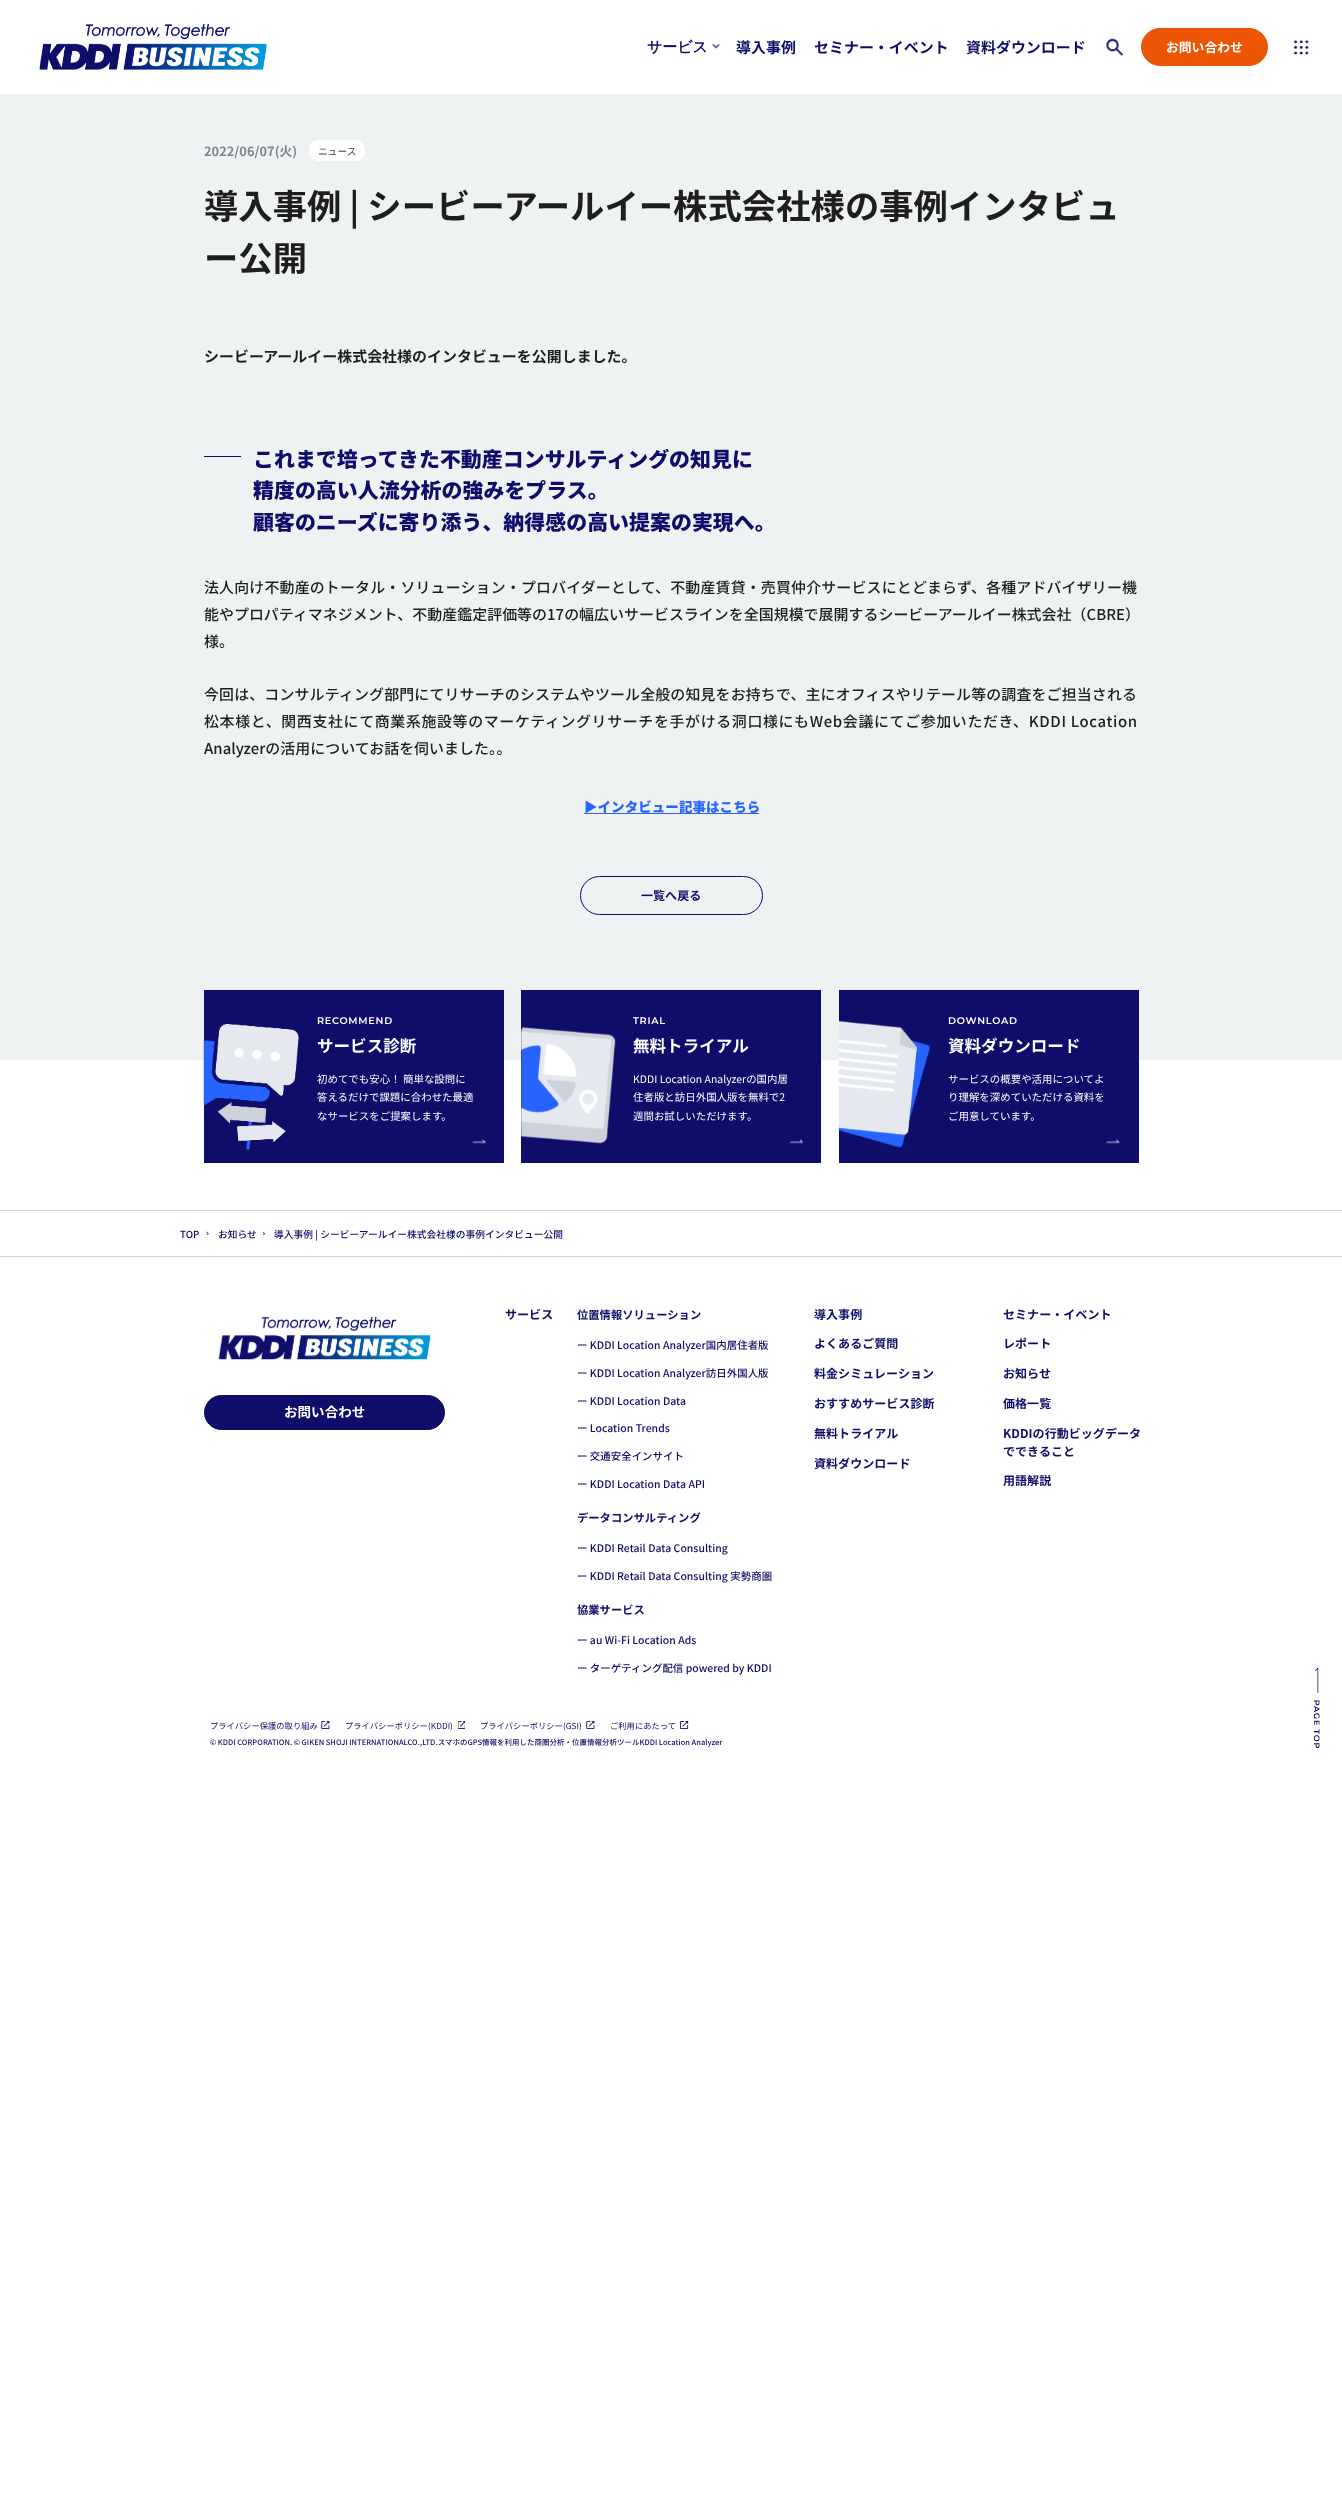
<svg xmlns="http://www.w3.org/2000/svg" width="1342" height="2509">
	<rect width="100%" height="100%" fill="#FFFFFF" />
	<image x="39" y="24" width="228" height="46" href="assets/img1.png" />
	<text x="647" y="52" font-family="WenQuanYi Zen Hei" font-size="14.92" font-weight="700" fill="#0E0D6A">サービス</text>
	<image x="712" y="44" width="8" height="5" href="assets/img2.png" />
	<g font-family="Noto Sans JP" font-size="14.92" font-weight="700" letter-spacing="0.06" fill="#0E0D6A">
		<text x="736" y="53">導入事例</text>
		<text x="814" y="53">セミナー・イベント</text>
		<text x="966" y="53">資料ダウンロード</text>
	</g>
	<image x="1106" y="38" width="18" height="19" href="assets/img3.png" />
	<rect x="1141.5" y="28.5" width="126" height="37" rx="18.5" fill="#EB5505" stroke="#EB5505" />
	<text x="1166" y="52" font-family="Noto Sans JP" font-size="12.75" font-weight="700" letter-spacing="0.06" fill="#FFFFFF">お問い合わせ</text>
	<image x="1293" y="40" width="16" height="15" href="assets/img4.png" />
	<rect x="0" y="94" width="1342" height="966" fill="#EEF2F3" />
	<text x="204" y="156" font-family="Noto Sans JP" font-size="12.75" font-weight="700" letter-spacing="0.06" fill="#7F848C">2022/06/07(火)</text>
	<rect x="309" y="140" width="56" height="21" rx="9" fill="#FFFFFF" />
	<text x="318" y="155" font-family="Noto Sans JP" font-size="9.7" letter-spacing="0.06" fill="#3C3C3C">ニュース</text>
	<g font-family="Noto Sans JP" font-size="34.3" font-weight="700" letter-spacing="0.06" fill="#1E1E1E">
		<text x="204" y="219">導入事例 | シービーアールイー株式会社様の事例インタビュ</text>
		<text x="204" y="271">ー公開</text>
	</g>
	<text x="204" y="362" font-family="Noto Sans JP" font-size="14.92" font-weight="700" letter-spacing="0.06" fill="#1E1E1E">シービーアールイー株式会社様のインタビューを公開しました。</text>
	<rect x="204" y="456" width="37" height="1" fill="#0E0D6A" />
	<g font-family="Noto Sans JP" font-size="20.9" font-weight="900" letter-spacing="0.06" fill="#0E0D6A">
		<text x="253" y="467">これまで培ってきた不動産コンサルティングの知見に</text>
		<text x="253" y="498">精度の高い人流分析の強みをプラス。</text>
		<text x="253" y="530">顧客のニーズに寄り添う、納得感の高い提案の実現へ。</text>
	</g>
	<text x="204" y="593" font-family="Noto Sans JP" font-size="14.92" font-weight="500" letter-spacing="0.2" fill="#1E1E1E">法人向け不動産のトータル・ソリューション・プロバイダーとして、不動産賃貸・売買仲介サービスにとどまらず、各種アドバイザリー機</text>
	<g font-family="Noto Sans JP" font-size="14.92" font-weight="500" letter-spacing="0.06" fill="#1E1E1E">
		<text x="204" y="620">能やプロパティマネジメント、不動産鑑定評価等の17の幅広いサービスラインを全国規模で展開するシービーアールイー株式会社（CBRE）</text>
		<text x="204" y="647">様。</text>
	</g>
	<text x="204" y="700" font-family="Noto Sans JP" font-size="14.92" font-weight="500" letter-spacing="0.18" fill="#1E1E1E">今回は、コンサルティング部門にてリサーチのシステムやツール全般の知見をお持ちで、主にオフィスやリテール等の調査をご担当される</text>
	<text x="204" y="727" font-family="Noto Sans JP" font-size="14.92" font-weight="500" letter-spacing="0.67" fill="#1E1E1E">松本様と、関西支社にて商業系施設等のマーケティングリサーチを手がける洞口様にもWeb会議にてご参加いただき、KDDI Location</text>
	<text x="204" y="754" font-family="Noto Sans JP" font-size="14.92" font-weight="500" letter-spacing="0.06" fill="#1E1E1E">Analyzerの活用についてお話を伺いました。。</text>
	<rect x="584" y="813" width="175" height="1" fill="#2763FF" />
	<text x="584" y="812" font-family="Noto Sans JP" font-size="13.5" font-weight="900" letter-spacing="0.06" fill="#2763FF">▶インタビュー記事はこちら</text>
	<rect x="580.5" y="876.5" width="182" height="38" rx="19" fill="none" stroke="#0E0D6A" />
	<text x="641" y="900" font-family="Noto Sans JP" font-size="12" font-weight="700" letter-spacing="0.06" fill="#0E0D6A">一覧へ戻る</text>
	<rect x="204" y="990" width="300" height="173" fill="#0E0D6A" />
	<image x="203" y="1023" width="96" height="127" href="assets/img5.png" />
	<text x="317" y="1024" font-family="Montserrat" font-size="9.7" font-weight="600" letter-spacing="0.75" fill="#FFFFFF">RECOMMEND</text>
	<text x="317" y="1052" font-family="Noto Sans JP" font-size="16.5" font-weight="700" letter-spacing="0.06" fill="#FFFFFF">サービス診断</text>
	<g font-family="Noto Sans JP" font-size="10.4" letter-spacing="0.06" fill="#FFFFFF">
		<text x="317" y="1083">初めてでも安心！ 簡単な設問に</text>
		<text x="317" y="1101">答えるだけで課題に合わせた最適</text>
		<text x="317" y="1120">なサービスをご提案します。</text>
	</g>
	<image x="472" y="1139" width="14" height="5" href="assets/img6.png" />
	<rect x="521" y="990" width="300" height="173" fill="#0E0D6A" />
	<image x="521" y="1027" width="95" height="117" href="assets/img7.png" />
	<text x="633" y="1024" font-family="Montserrat" font-size="9.7" font-weight="600" letter-spacing="0.75" fill="#FFFFFF">TRIAL</text>
	<text x="633" y="1052" font-family="Noto Sans JP" font-size="16.5" font-weight="700" letter-spacing="0.06" fill="#FFFFFF">無料トライアル</text>
	<g font-family="Noto Sans JP" font-size="10.4" letter-spacing="0.06" fill="#FFFFFF">
		<text x="633" y="1083">KDDI Location Analyzerの国内居</text>
		<text x="633" y="1101">住者版と訪日外国人版を無料で2</text>
		<text x="633" y="1120">週間お試しいただけます。</text>
	</g>
	<image x="790" y="1139" width="13" height="5" href="assets/img8.png" />
	<rect x="839" y="990" width="300" height="173" fill="#0E0D6A" />
	<image x="838" y="1020" width="92" height="128" href="assets/img9.png" />
	<text x="948" y="1024" font-family="Montserrat" font-size="9.7" font-weight="600" letter-spacing="0.75" fill="#FFFFFF">DOWNLOAD</text>
	<text x="948" y="1052" font-family="Noto Sans JP" font-size="16.5" font-weight="700" letter-spacing="0.06" fill="#FFFFFF">資料ダウンロード</text>
	<g font-family="Noto Sans JP" font-size="10.4" letter-spacing="0.06" fill="#FFFFFF">
		<text x="948" y="1083">サービスの概要や活用についてよ</text>
		<text x="948" y="1101">り理解を深めていただける資料を</text>
		<text x="948" y="1120">ご用意しています。</text>
	</g>
	<image x="1106" y="1139" width="14" height="5" href="assets/img10.png" />
	<rect x="0" y="1256" width="1342" height="1" fill="#CDD2D9" />
	<rect x="0" y="1210" width="1342" height="1" fill="#CDD2D9" />
	<text x="180" y="1238" font-family="Noto Sans JP" font-size="9.7" font-weight="500" letter-spacing="0.06" fill="#0E0D6A">TOP</text>
	<image x="206" y="1231" width="3" height="4" href="assets/img11.png" />
	<text x="218" y="1238" font-family="Noto Sans JP" font-size="9.7" font-weight="500" letter-spacing="0.06" fill="#0E0D6A">お知らせ</text>
	<image x="263" y="1231" width="2" height="4" href="assets/img12.png" />
	<text x="274" y="1238" font-family="Noto Sans JP" font-size="9.7" font-weight="500" letter-spacing="0.06" fill="#0E0D6A">導入事例 | シービーアールイー株式会社様の事例インタビュー公開</text>
	<image x="218" y="1316" width="213" height="44" href="assets/img13.png" />
	<rect x="204.5" y="1395.5" width="240" height="34" rx="17" fill="#0E0D6A" stroke="#0E0D6A" />
	<text x="284" y="1417" font-family="Noto Sans JP" font-size="13.5" font-weight="700" letter-spacing="0.06" fill="#FFFFFF">お問い合わせ</text>
	<text x="505" y="1319" font-family="Noto Sans JP" font-size="12" font-weight="700" letter-spacing="0.06" fill="#0E0D6A">サービス</text>
	<text x="577" y="1319" font-family="Noto Sans JP" font-size="11.25" font-weight="700" letter-spacing="0.06" fill="#0E0D6A">位置情報ソリューション</text>
	<g font-family="Noto Sans JP" font-size="10.4" font-weight="500" letter-spacing="0.06" fill="#0E0D6A">
		<text x="577" y="1349">ー KDDI Location Analyzer国内居住者版</text>
		<text x="577" y="1377">ー KDDI Location Analyzer訪日外国人版</text>
		<text x="577" y="1405">ー KDDI Location Data</text>
		<text x="577" y="1432">ー Location Trends</text>
		<text x="577" y="1460">ー 交通安全インサイト</text>
		<text x="577" y="1488">ー KDDI Location Data API</text>
	</g>
	<text x="577" y="1522" font-family="Noto Sans JP" font-size="11.25" font-weight="700" letter-spacing="0.06" fill="#0E0D6A">データコンサルティング</text>
	<g font-family="Noto Sans JP" font-size="10.4" font-weight="500" letter-spacing="0.06" fill="#0E0D6A">
		<text x="577" y="1552">ー KDDI Retail Data Consulting</text>
		<text x="577" y="1580">ー KDDI Retail Data Consulting 実勢商圏</text>
	</g>
	<text x="577" y="1614" font-family="Noto Sans JP" font-size="11.25" font-weight="700" letter-spacing="0.06" fill="#0E0D6A">協業サービス</text>
	<g font-family="Noto Sans JP" font-size="10.4" font-weight="500" letter-spacing="0.06" fill="#0E0D6A">
		<text x="577" y="1644">ー au Wi-Fi Location Ads</text>
		<text x="577" y="1672">ー ターゲティング配信 powered by KDDI</text>
	</g>
	<g font-family="Noto Sans JP" font-size="12" font-weight="700" letter-spacing="0.06" fill="#0E0D6A">
		<text x="814" y="1319">導入事例</text>
		<text x="814" y="1348">よくあるご質問</text>
		<text x="814" y="1378">料金シミュレーション</text>
		<text x="814" y="1408">おすすめサービス診断</text>
		<text x="814" y="1438">無料トライアル</text>
		<text x="814" y="1468">資料ダウンロード</text>
		<text x="1003" y="1319">セミナー・イベント</text>
		<text x="1003" y="1348">レポート</text>
		<text x="1003" y="1378">お知らせ</text>
		<text x="1003" y="1408">価格一覧</text>
		<text x="1003" y="1438">KDDIの行動ビッグデータ</text>
		<text x="1003" y="1456">でできること</text>
		<text x="1003" y="1485">用語解説</text>
	</g>
	<text x="210" y="1729" font-family="Noto Sans JP" font-size="8.25" letter-spacing="0.06" fill="#0E0D6A">プライバシー保護の取り組み</text>
	<image x="321" y="1721" width="9" height="8" href="assets/img14.png" />
	<text x="345" y="1729" font-family="Noto Sans JP" font-size="8.25" letter-spacing="0.06" fill="#0E0D6A">プライバシーポリシー(KDDI)</text>
	<image x="458" y="1721" width="7" height="8" href="assets/img15.png" />
	<text x="480" y="1729" font-family="Noto Sans JP" font-size="8.25" letter-spacing="0.06" fill="#0E0D6A">プライバシーポリシー(GSI)</text>
	<image x="586" y="1721" width="9" height="8" href="assets/img14.png" />
	<text x="610" y="1729" font-family="Noto Sans JP" font-size="8.25" letter-spacing="0.06" fill="#0E0D6A">ご利用にあたって</text>
	<image x="680" y="1721" width="9" height="8" href="assets/img16.png" />
	<text x="210" y="1745" word-spacing="-0.25" font-family="Noto Sans JP" font-size="7.45" font-weight="500" letter-spacing="0.06" fill="#0E0D6A">© KDDI CORPORATION. © GIKEN SHOJI INTERNATIONALCO.,LTD.スマホのGPS情報を利⽤した商圏分析・位置情報分析ツールKDDI Location Analyzer</text>
	<image x="1314" y="1667" width="6" height="81" href="assets/img17.png" />
</svg>
